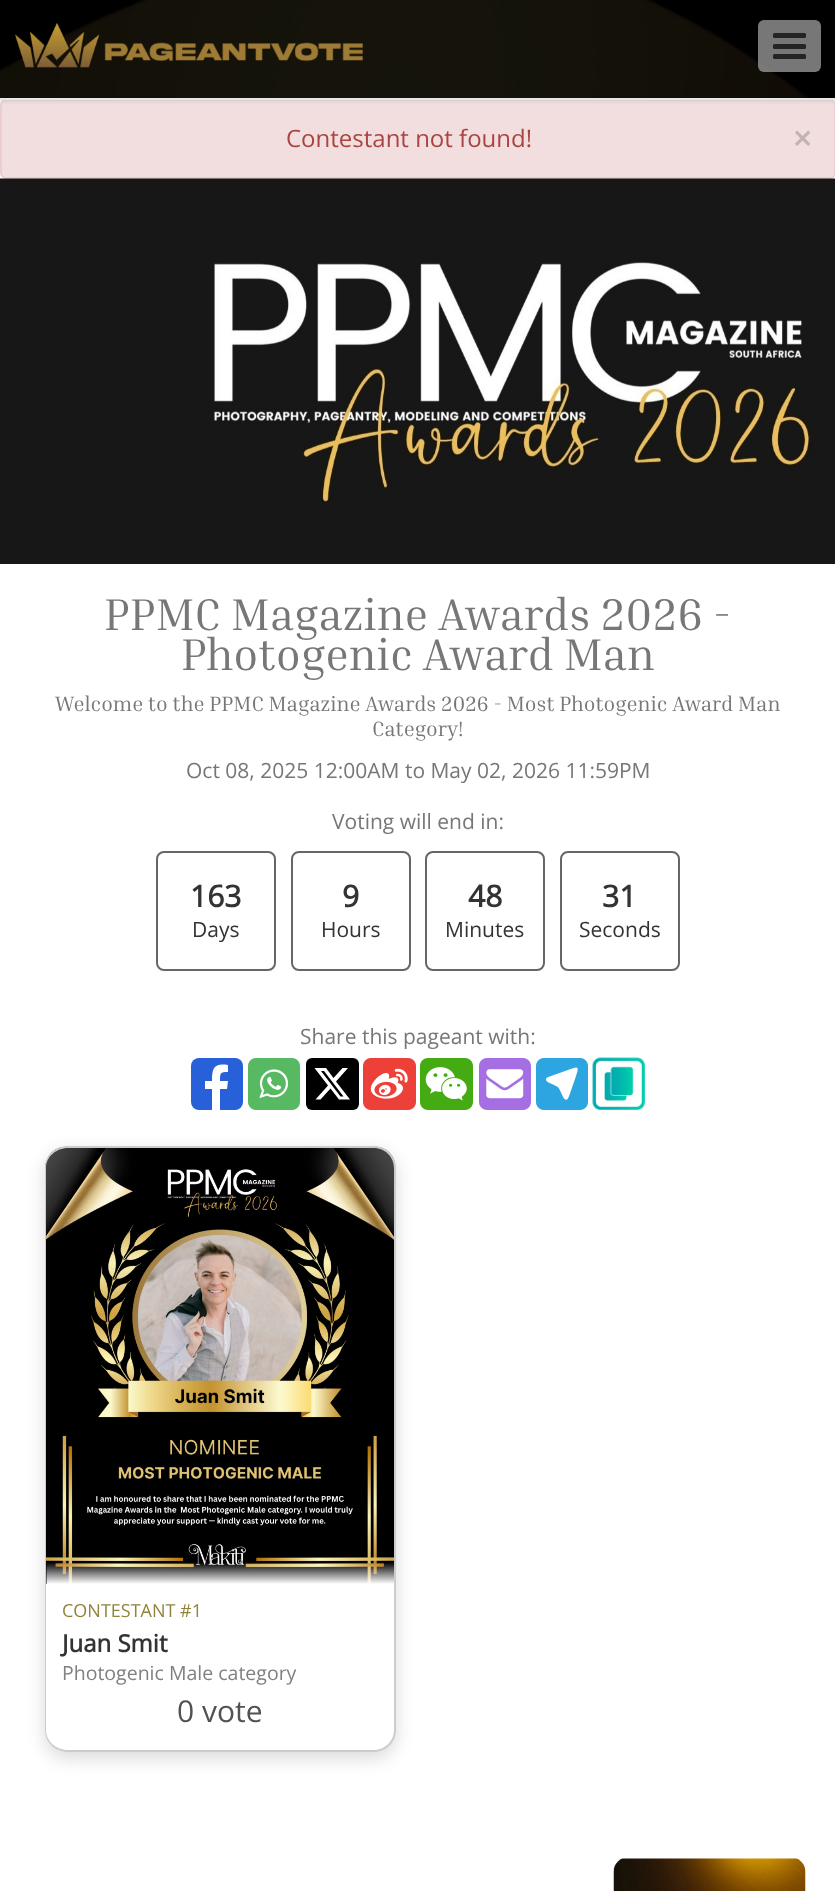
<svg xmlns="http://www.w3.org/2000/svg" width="835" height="1891">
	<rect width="100%" height="100%" fill="#FFFFFF" />
	<rect x="1" y="100" width="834" height="78" rx="5" fill="#F2DEDE" stroke="#EBCCD1" stroke-width="2" />
	<rect x="0" y="3" width="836" height="99" fill="#CCCCCC" fill-opacity="0.65" filter="blur(2px)" />
	<image x="0" y="0" width="835" height="98" href="assets/img1.png" />
	<rect x="0" y="98" width="835" height="2" fill="#E7E7E7" />
	<image x="15" y="23" width="348" height="45" href="assets/img2.png" />
	<rect x="758" y="20" width="63" height="52" rx="6" fill="#AAAAAA" fill-opacity="0.7" />
	<rect x="773" y="33" width="33" height="5" rx="1.5" fill="#242424" />
	<rect x="773" y="44" width="33" height="5" rx="1.5" fill="#242424" />
	<rect x="773" y="54" width="33" height="5" rx="1.5" fill="#242424" />
	<text x="286" y="147" font-family="Open Sans" font-size="24" fill="#A94442">Contestant not found!</text>
	<text x="793" y="150" font-family="Open Sans" font-size="32" font-weight="700" fill="#C2B2B2">×</text>
	<image x="0" y="178" width="835" height="386" href="assets/img3.png" />
	<g font-family="Inria Serif" font-size="45" fill="#777777">
		<text x="104" y="630">PPMC Magazine Awards 2026 -</text>
		<text x="181" y="670">Photogenic Award Man</text>
	</g>
	<g font-family="Inria Serif" font-size="21" fill="#777777">
		<text x="55" y="711">Welcome to the PPMC Magazine Awards 2026 - Most Photogenic Award Man</text>
		<text x="372" y="736">Category!</text>
	</g>
	<g font-family="Open Sans" font-size="21" fill="#777777">
		<text x="186" y="778">Oct 08, 2025 12:00AM to May 02, 2026 11:59PM</text>
		<text x="332" y="829">Voting will end in:</text>
	</g>
	<rect x="157" y="852" width="118" height="118" rx="7" fill="none" stroke="#666666" stroke-width="2" />
	<text x="190" y="907" font-family="Open Sans" font-size="30" font-weight="700" fill="#333333">163</text>
	<text x="192" y="937" font-family="Open Sans" font-size="21" fill="#333333">Days</text>
	<rect x="292" y="852" width="118" height="118" rx="7" fill="none" stroke="#666666" stroke-width="2" />
	<text x="342" y="907" font-family="Open Sans" font-size="30" font-weight="700" fill="#333333">9</text>
	<text x="321" y="937" font-family="Open Sans" font-size="21" fill="#333333">Hours</text>
	<rect x="426" y="852" width="118" height="118" rx="7" fill="none" stroke="#666666" stroke-width="2" />
	<text x="468" y="907" font-family="Open Sans" font-size="30" font-weight="700" fill="#333333">48</text>
	<text x="445" y="937" font-family="Open Sans" font-size="21" fill="#333333">Minutes</text>
	<rect x="561" y="852" width="118" height="118" rx="7" fill="none" stroke="#666666" stroke-width="2" />
	<text x="602" y="907" font-family="Open Sans" font-size="30" font-weight="700" fill="#333333">31</text>
	<text x="579" y="937" font-family="Open Sans" font-size="21" fill="#333333">Seconds</text>
	<text x="300" y="1044" font-family="Open Sans" font-size="21" fill="#777777">Share this pageant with:</text>
	<rect x="191" y="1058" width="52" height="52" rx="8" fill="#2760D8" />
	<path d="M228 1065V1072C220 1072 220 1073 220 1081H228L227 1089H220V1110H212V1089H205V1081H212C212 1068 214 1063 228 1065Z" fill="#FFFFFF" fill-rule="evenodd" />
	<image x="248" y="1058" width="52" height="52" href="assets/img4.png" />
	<rect x="306" y="1058" width="53" height="52" rx="6" fill="#000000" />
	<path d="M342.5 1068H348L336 1081.5L350 1099.5H339L330.5 1088.5L320.5 1099.5H315.5L328 1085.5L314.5 1068H326L333.5 1078ZM340.5 1096.5H343.5L324 1071H321Z" fill="#FFFFFF" />
	<image x="363" y="1058" width="53" height="52" href="assets/img5.png" />
	<image x="420" y="1058" width="53" height="52" href="assets/img6.png" />
	<image x="479" y="1058" width="52" height="52" href="assets/img7.png" />
	<image x="536" y="1058" width="52" height="52" href="assets/img8.png" />
	<image x="592" y="1057" width="53" height="53" href="assets/img9.png" />
	<rect x="45" y="1152" width="351" height="606" rx="23" fill="#000000" fill-opacity="0.15" filter="blur(9px)" />
	<image x="45" y="1147" width="350" height="437" href="assets/img10.png" />
	<path d="M68 1146H374C386 1146 396 1156 396 1168V1584H45V1168C45 1156 55 1146 68 1146ZM68 1148H374C385 1148 394 1157 394 1168V1584H46V1168C46 1157 56 1148 68 1148Z" fill="#CCCCCC" fill-rule="evenodd" />
	<path d="M45 1584H396V1729C396 1741.5 385.5 1752 373 1752H68C55.5 1752 45 1741.5 45 1729Z" fill="#FFFFFF" />
	<path d="M45 1584H396V1730C396 1742 386 1752 374 1752H68C55 1752 45 1742 45 1730ZM46 1584H394V1730C394 1741 385 1750 374 1750H68C56 1750 46 1741 46 1730Z" fill="#CCCCCC" fill-rule="evenodd" />
	<text x="62" y="1617" font-family="Open Sans" font-size="18" fill="#90843C">CONTESTANT #1</text>
	<text x="62" y="1652" font-family="Open Sans" font-size="24" font-weight="700" fill="#333333">Juan Smit</text>
	<text x="62" y="1680" font-family="Open Sans" font-size="19.5" fill="#808080">Photogenic Male category</text>
	<text x="177" y="1722" font-family="Open Sans" font-size="30" fill="#525252">0 vote</text>
	<image x="613" y="1858" width="193" height="33" href="assets/img11.png" />
</svg>
